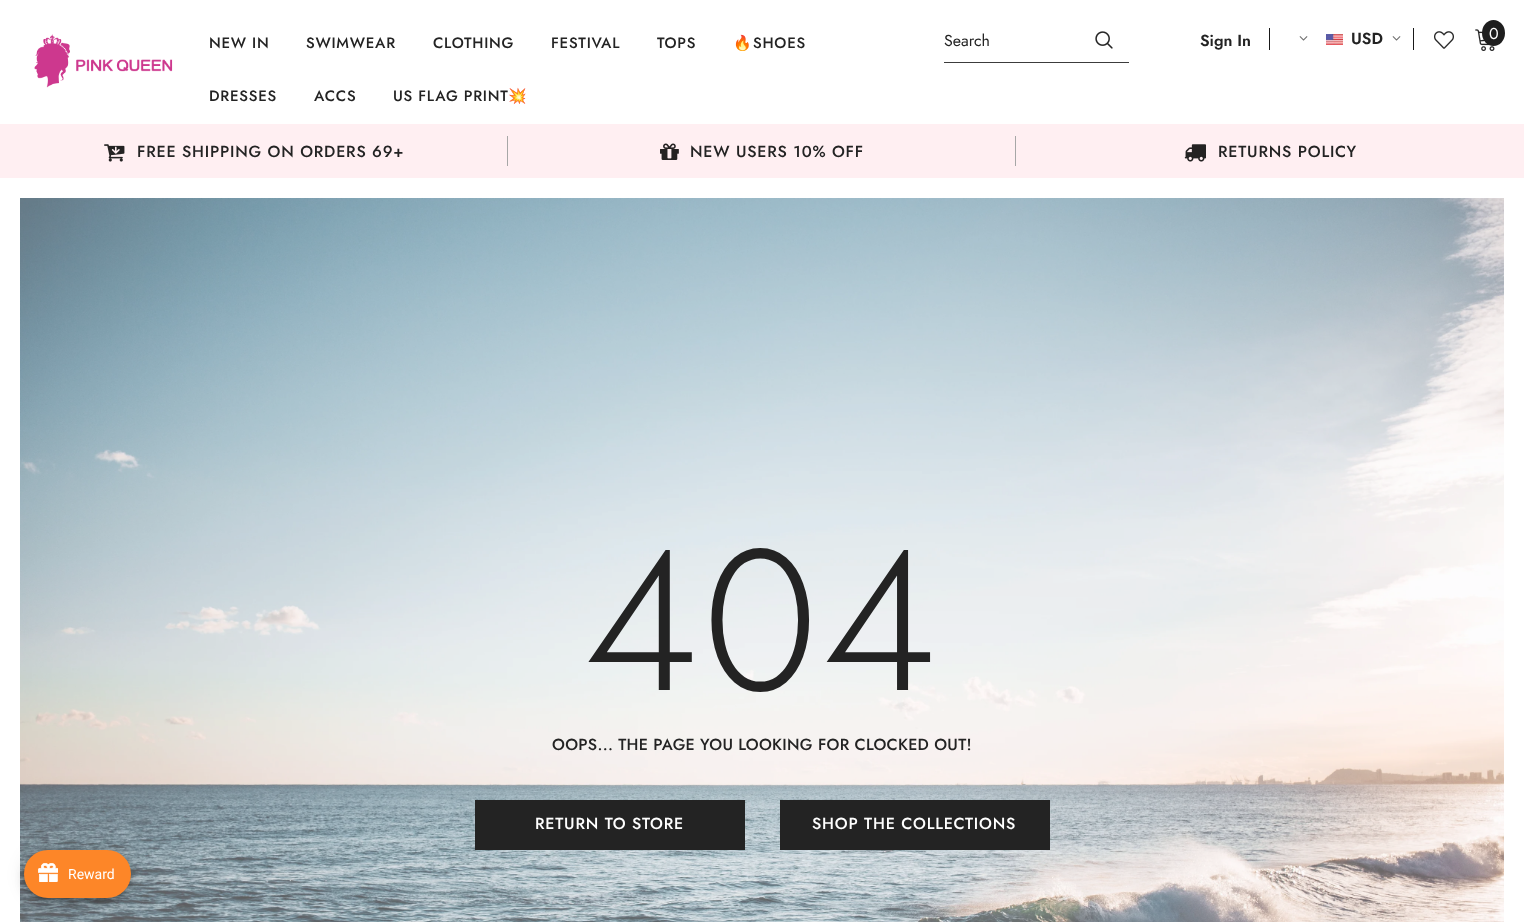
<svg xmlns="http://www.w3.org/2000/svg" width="1524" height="922">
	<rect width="100%" height="100%" fill="#FFFFFF" />
	<image x="34" y="34" width="139" height="54" href="assets/img1.png" />
	<g font-family="Jost" font-size="15" font-weight="500" letter-spacing="0.75" fill="#232323">
		<text x="209" y="48">NEW IN</text>
		<text x="306" y="48">SWIMWEAR</text>
		<text x="433" y="48">CLOTHING</text>
		<text x="551" y="48">FESTIVAL</text>
		<text x="657" y="48">TOPS</text>
	</g>
	<text x="733" y="48" font-family="Noto Color Emoji" font-size="15" letter-spacing="0.75" fill="#232323">🔥</text>
	<g font-family="Jost" font-size="15" font-weight="500" letter-spacing="0.75" fill="#232323">
		<text x="753" y="48">SHOES</text>
		<text x="209" y="101">DRESSES</text>
		<text x="314" y="101">ACCS</text>
		<text x="393" y="101">US FLAG PRINT</text>
	</g>
	<text x="508" y="101" font-family="Noto Color Emoji" font-size="15" letter-spacing="0.75" fill="#232323">💥</text>
	<rect x="944" y="62" width="185" height="1" fill="#3C3C3C" />
	<text x="944" y="46" font-family="Jost" font-size="16" fill="#232323">Search</text>
	<image x="1095" y="31" width="18" height="18" href="assets/img2.png" />
	<text x="1200" y="46" font-family="Jost" font-size="16" font-weight="600" fill="#232323">Sign In</text>
	<rect x="1269" y="28" width="1" height="22" fill="#191919" />
	<image x="1299" y="36" width="9" height="5" href="assets/img3.png" />
	<image x="1326" y="34" width="17" height="11" href="assets/img4.png" />
	<text x="1351" y="44" font-family="Jost" font-size="16" font-weight="600" fill="#232323">USD</text>
	<image x="1392" y="36" width="9" height="5" href="assets/img3.png" />
	<rect x="1413" y="28" width="1" height="22" fill="#191919" />
	<image x="1434" y="31" width="20" height="18" href="assets/img5.png" />
	<image x="1475" y="29" width="20" height="22" href="assets/img6.png" />
	<ellipse cx="1493.5" cy="33" rx="11.5" ry="13" fill="#1E1E1E" />
	<text x="1489" y="39" font-family="Jost" font-size="16" fill="#FFFFFF">0</text>
	<rect x="0" y="124" width="1524" height="54" fill="#FFEFF2" />
	<image x="104" y="144" width="21" height="18" href="assets/img7.png" />
	<text x="137" y="157" font-family="Jost" font-size="16" font-weight="500" letter-spacing="0.8" fill="#232323">FREE SHIPPING ON ORDERS 69+</text>
	<rect x="507" y="136" width="1" height="30" fill="#A7A7A7" />
	<image x="660" y="143" width="19" height="17" href="assets/img8.png" />
	<text x="690" y="157" font-family="Jost" font-size="16" font-weight="500" letter-spacing="0.8" fill="#232323">NEW USERS 10% OFF</text>
	<rect x="1015" y="136" width="1" height="30" fill="#A7A7A7" />
	<image x="1184" y="144" width="22" height="18" href="assets/img9.png" />
	<text x="1218" y="157" font-family="Jost" font-size="16" font-weight="500" letter-spacing="0.8" fill="#232323">RETURNS POLICY</text>
	<image x="20" y="198" width="1484" height="724" href="assets/img10.png" />
	<text x="584" y="690" font-family="Jost" font-size="200" font-weight="300" letter-spacing="4" fill="#232323">404</text>
	<text x="552" y="750" font-family="Jost" font-size="16" font-weight="500" letter-spacing="0.3" fill="#232323">OOPS... THE PAGE YOU LOOKING FOR CLOCKED OUT!</text>
	<rect x="475" y="800" width="270" height="50" fill="#232323" />
	<text x="535" y="829" font-family="Jost" font-size="16" font-weight="500" letter-spacing="0.8" fill="#FFFFFF">RETURN TO STORE</text>
	<rect x="780" y="800" width="270" height="50" fill="#232323" />
	<text x="812" y="829" font-family="Jost" font-size="16" font-weight="500" letter-spacing="0.8" fill="#FFFFFF">SHOP THE COLLECTIONS</text>
	<rect x="24" y="851" width="107" height="48" rx="24" fill="#000000" fill-opacity="0.12" filter="blur(9px)" />
	<rect x="24" y="856" width="107" height="48" rx="24" fill="#000000" fill-opacity="0.14" filter="blur(5px)" />
	<rect x="25" y="854" width="105" height="46" rx="23" fill="#000000" fill-opacity="0.2" filter="blur(2.5px)" />
	<rect x="24" y="850" width="107" height="48" rx="24" fill="#FD8628" />
	<image x="38" y="863" width="20" height="19" href="assets/img11.png" />
	<text x="68" y="879" font-family="Roboto" font-size="14" fill="#FFFFFF">Reward</text>
</svg>
